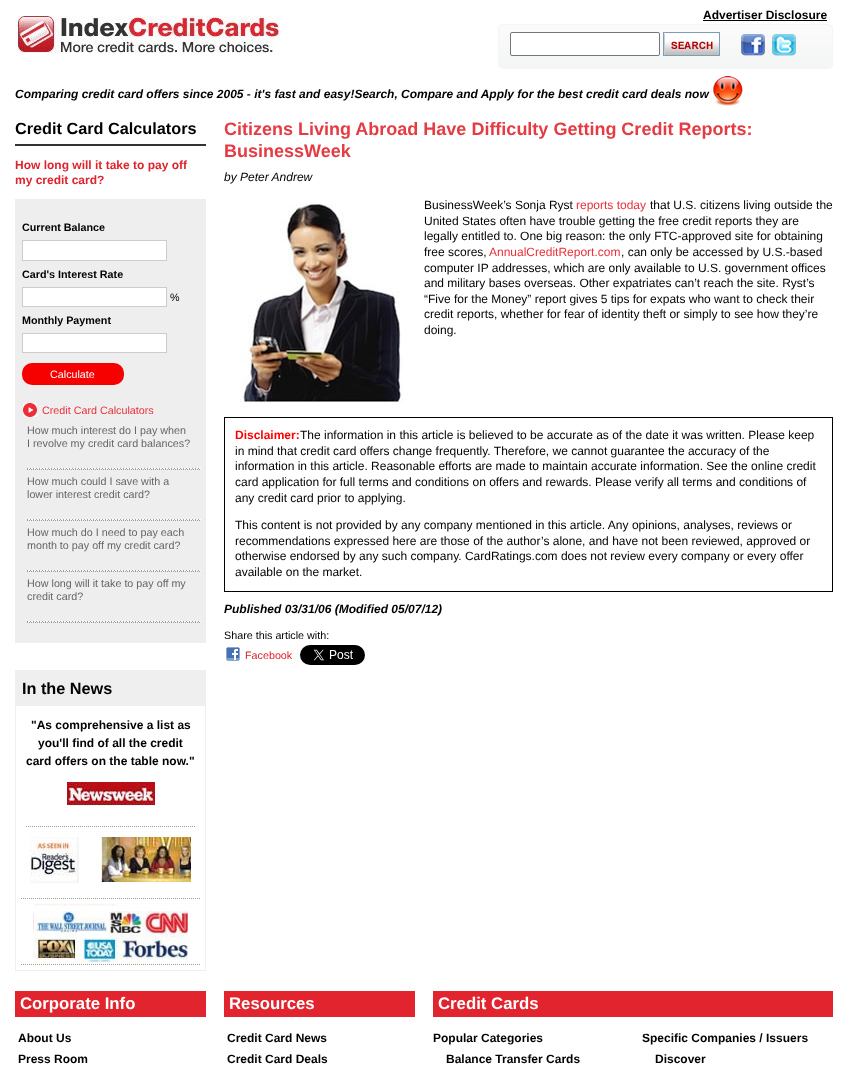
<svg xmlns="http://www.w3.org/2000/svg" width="848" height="1080">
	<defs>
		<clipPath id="clip1"><rect x="498" y="24" width="335" height="45" rx="5" /></clipPath>
		<linearGradient id="g1" gradientUnits="userSpaceOnUse" x1="666" y1="25" x2="666" y2="68"><stop offset="0" stop-color="#FBFBFB" /><stop offset="1" stop-color="#F4F5F5" /></linearGradient>
	</defs>
	<rect width="100%" height="100%" fill="#FFFFFF" />
	<text x="703" y="19" font-family="Liberation Sans" font-size="12" font-weight="700" fill="#000000">Advertiser Disclosure</text>
	<rect x="703" y="20" width="124" height="1" fill="#000000" />
	<g clip-path="url(#clip1)">
		<rect x="498" y="25" width="335" height="43" fill="url(#g1)" />
	</g>
	<rect x="498.5" y="24.5" width="334" height="44" rx="4.5" fill="none" stroke="#F4F5F5" />
	<rect x="510.5" y="32.5" width="149" height="23" rx="1.5" fill="#FFFFFF" stroke="#767676" />
	<image x="664" y="34" width="55" height="21" href="assets/img1.png" />
	<rect x="663.5" y="32.5" width="56" height="23" fill="none" stroke="#7E9DB9" />
	<image x="741" y="34" width="24" height="22" href="assets/img2.png" />
	<image x="772" y="34" width="24" height="22" href="assets/img3.png" />
	<image x="18" y="16" width="261" height="37" href="assets/img4.png" />
	<text x="15" y="98" font-family="Liberation Sans" font-size="12" font-weight="700" font-style="italic" fill="#000000">Comparing credit card offers since 2005 - it's fast and easy!Search, Compare and Apply for the best credit card deals now</text>
	<image x="713" y="76" width="30" height="30" href="assets/img5.png" />
	<rect x="15" y="144" width="191" height="2" fill="#333333" />
	<text x="15" y="134" font-family="Liberation Sans" font-size="16.25" font-weight="700" fill="#000000">Credit Card Calculators</text>
	<g font-family="Liberation Sans" font-size="12" font-weight="700" fill="#DF232C">
		<text x="15" y="169">How long will it take to pay off</text>
		<text x="15" y="184">my credit card?</text>
	</g>
	<rect x="15" y="199" width="191" height="444" fill="#EEEEEE" />
	<text x="22" y="231" font-family="Liberation Sans" font-size="10.75" font-weight="700" fill="#000000">Current Balance</text>
	<rect x="22.5" y="240.5" width="144" height="20" fill="#FFFFFF" stroke="#CCCCCC" />
	<text x="22" y="278" font-family="Liberation Sans" font-size="10.75" font-weight="700" fill="#000000">Card's Interest Rate</text>
	<rect x="22.5" y="287.5" width="144" height="19" fill="#FFFFFF" stroke="#CCCCCC" />
	<text x="170" y="301" font-family="Liberation Sans" font-size="10.75" fill="#000000">%</text>
	<text x="22" y="324" font-family="Liberation Sans" font-size="10.75" font-weight="700" fill="#000000">Monthly Payment</text>
	<rect x="22.5" y="333.5" width="144" height="19" fill="#FFFFFF" stroke="#CCCCCC" />
	<rect x="22" y="363" width="102" height="22" rx="10" fill="#F70000" />
	<text x="50" y="378" font-family="Liberation Sans" font-size="10.75" fill="#FFFFFF">Calculate</text>
	<image x="23" y="403" width="14" height="14" href="assets/img6.png" />
	<text x="42" y="414" font-family="Liberation Sans" font-size="10.75" fill="#EA2F38">Credit Card Calculators</text>
	<image x="27" y="468" width="174" height="1" href="assets/img7.png" />
	<path d="M27 469.5H201" fill="none" stroke="#9D9DA1" stroke-dasharray="1 1" />
	<g font-family="Liberation Sans" font-size="10.75" fill="#666666">
		<text x="27" y="434">How much interest do I pay when</text>
		<text x="27" y="447">I revolve my credit card balances?</text>
	</g>
	<image x="27" y="519" width="174" height="1" href="assets/img7.png" />
	<path d="M27 520.5H201" fill="none" stroke="#9D9DA1" stroke-dasharray="1 1" />
	<g font-family="Liberation Sans" font-size="10.75" fill="#666666">
		<text x="27" y="485">How much could I save with a</text>
		<text x="27" y="498">lower interest credit card?</text>
	</g>
	<image x="27" y="570" width="174" height="1" href="assets/img7.png" />
	<path d="M27 571.5H201" fill="none" stroke="#9D9DA1" stroke-dasharray="1 1" />
	<g font-family="Liberation Sans" font-size="10.75" fill="#666666">
		<text x="27" y="536">How much do I need to pay each</text>
		<text x="27" y="549">month to pay off my credit card?</text>
	</g>
	<image x="27" y="621" width="174" height="1" href="assets/img7.png" />
	<path d="M27 622.5H201" fill="none" stroke="#9D9DA1" stroke-dasharray="1 1" />
	<g font-family="Liberation Sans" font-size="10.75" fill="#666666">
		<text x="27" y="587">How long will it take to pay off my</text>
		<text x="27" y="600">credit card?</text>
	</g>
	<rect x="15.5" y="670.5" width="190" height="300" fill="none" stroke="#EFEFEF" />
	<rect x="16" y="671" width="189" height="35" fill="#EFEFEF" />
	<text x="22" y="694" font-family="Liberation Sans" font-size="16.25" font-weight="700" fill="#000000">In the News</text>
	<path d="M26 826.5H195" fill="none" stroke="#9D9DA1" stroke-dasharray="1 1" />
	<g font-family="Liberation Sans" font-size="12" font-weight="700" fill="#000000">
		<text x="31" y="729">"As comprehensive a list as</text>
		<text x="38" y="747">you'll find of all the credit</text>
		<text x="26" y="765">card offers on the table now."</text>
	</g>
	<image x="67" y="782" width="88" height="24" href="assets/img8.png" />
	<path d="M21 898.5H200" fill="none" stroke="#9D9DA1" stroke-dasharray="1 1" />
	<image x="30" y="837" width="49" height="46" href="assets/img9.png" />
	<image x="101" y="837" width="90" height="45" href="assets/img10.png" />
	<path d="M21 964.5H200" fill="none" stroke="#9D9DA1" stroke-dasharray="1 1" />
	<image x="33" y="904" width="155" height="60" href="assets/img11.png" />
	<g font-family="Liberation Sans" font-size="18" font-weight="700" fill="#E43B44">
		<text x="224" y="135">Citizens Living Abroad Have Difficulty Getting Credit Reports:</text>
		<text x="224" y="157">BusinessWeek</text>
	</g>
	<text x="224" y="181" font-family="Liberation Sans" font-size="12" font-style="italic" fill="#000000">by Peter Andrew</text>
	<image x="240" y="203" width="164" height="200" href="assets/img12.png" />
	<text x="424" y="209" font-family="Liberation Sans" font-size="12" fill="#000000">BusinessWeek’s Sonja Ryst</text>
	<text x="576" y="209" font-family="Liberation Sans" font-size="12" fill="#EA2F38">reports today</text>
	<g font-family="Liberation Sans" font-size="12" fill="#000000">
		<text x="650" y="209">that U.S. citizens living outside the</text>
		<text x="424" y="225">United States often have trouble getting the free credit reports they are</text>
		<text x="424" y="240">legally entitled to. One big reason: the only FTC-approved site for obtaining</text>
		<text x="424" y="256">free scores,</text>
	</g>
	<text x="489" y="256" font-family="Liberation Sans" font-size="12" fill="#EA2F38">AnnualCreditReport.com</text>
	<g font-family="Liberation Sans" font-size="12" fill="#000000">
		<text x="621" y="256">, can only be accessed by U.S.-based</text>
		<text x="424" y="272">computer IP addresses, which are only available to U.S. government offices</text>
		<text x="424" y="287">and military bases overseas. Other expatriates can’t reach the site. Ryst’s</text>
		<text x="424" y="303">“Five for the Money” report gives 5 tips for expats who want to check their</text>
		<text x="424" y="318">credit reports, whether for fear of identity theft or simply to see how they’re</text>
		<text x="424" y="334">doing.</text>
	</g>
	<rect x="224.5" y="417.5" width="608" height="174" fill="none" stroke="#000000" />
	<text x="235" y="439" font-family="Liberation Sans" font-size="12" font-weight="700" fill="#FF0000">Disclaimer:</text>
	<g font-family="Liberation Sans" font-size="12" fill="#000000">
		<text x="300" y="439">The information in this article is believed to be accurate as of the date it was written. Please keep</text>
		<text x="235" y="455">in mind that credit card offers change frequently. Therefore, we cannot guarantee the accuracy of the</text>
		<text x="235" y="470">information in this article. Reasonable efforts are made to maintain accurate information. See the online credit</text>
		<text x="235" y="486">card application for full terms and conditions on offers and rewards. Please verify all terms and conditions of</text>
		<text x="235" y="502">any credit card prior to applying.</text>
		<text x="235" y="529">This content is not provided by any company mentioned in this article. Any opinions, analyses, reviews or</text>
		<text x="235" y="545">recommendations expressed here are those of the author’s alone, and have not been reviewed, approved or</text>
		<text x="235" y="560">otherwise endorsed by any such company. CardRatings.com does not review every company or every offer</text>
		<text x="235" y="576">available on the market.</text>
	</g>
	<text x="224" y="613" font-family="Liberation Sans" font-size="12" font-weight="700" font-style="italic" fill="#000000">Published 03/31/06 (Modified 05/07/12)</text>
	<text x="224" y="639" font-family="Liberation Sans" font-size="10.75" fill="#000000">Share this article with:</text>
	<image x="226" y="647" width="14" height="14" href="assets/img13.png" />
	<text x="245" y="659" font-family="Liberation Sans" font-size="10.75" fill="#DF232C">Facebook</text>
	<image x="300" y="645" width="65" height="20" href="assets/img14.png" />
	<rect x="15" y="991" width="191" height="26" fill="#E1242E" />
	<text x="20" y="1009" font-family="Liberation Sans" font-size="16.75" font-weight="700" fill="#FFFFFF">Corporate Info</text>
	<g font-family="Liberation Sans" font-size="12" font-weight="700" fill="#000000">
		<text x="18" y="1042">About Us</text>
		<text x="18" y="1063">Press Room</text>
	</g>
	<rect x="224" y="991" width="191" height="26" fill="#E1242E" />
	<text x="229" y="1009" font-family="Liberation Sans" font-size="16.75" font-weight="700" fill="#FFFFFF">Resources</text>
	<g font-family="Liberation Sans" font-size="12" font-weight="700" fill="#000000">
		<text x="227" y="1042">Credit Card News</text>
		<text x="227" y="1063">Credit Card Deals</text>
	</g>
	<rect x="433" y="991" width="400" height="26" fill="#E1242E" />
	<text x="438" y="1009" font-family="Liberation Sans" font-size="16.75" font-weight="700" fill="#FFFFFF">Credit Cards</text>
	<g font-family="Liberation Sans" font-size="12" font-weight="700" fill="#000000">
		<text x="433" y="1042">Popular Categories</text>
		<text x="446" y="1063">Balance Transfer Cards</text>
		<text x="642" y="1042">Specific Companies / Issuers</text>
		<text x="655" y="1063">Discover</text>
	</g>
</svg>
